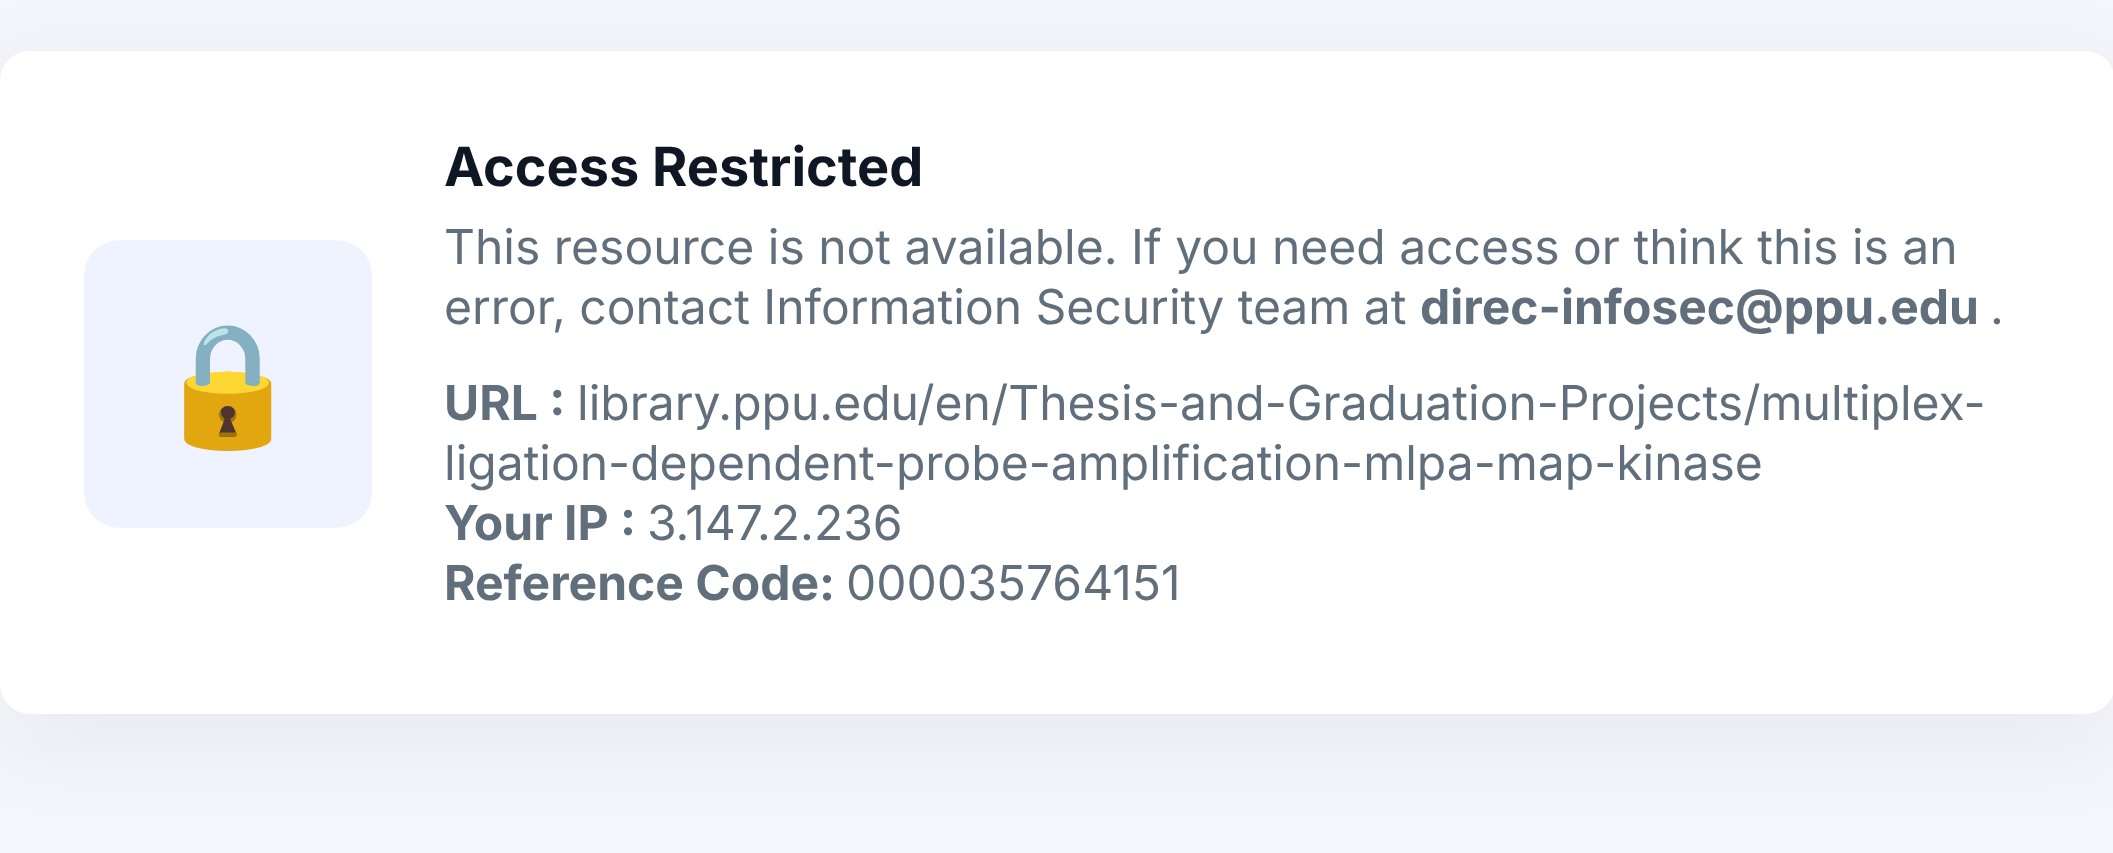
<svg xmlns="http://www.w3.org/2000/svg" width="2113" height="853">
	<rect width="100%" height="100%" fill="#F4F6FB" />
	<rect x="0" y="75" width="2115" height="663" rx="30" fill="#0F1722" fill-opacity="0.06" filter="blur(45px)" />
	<rect x="0" y="51" width="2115" height="663" rx="30" fill="#FFFFFF" />
	<rect x="84" y="240" width="288" height="288" rx="36" fill="#EEF3FF" />
	<text x="153" y="426" font-family="Noto Color Emoji" font-size="120" fill="#0F1724">🔒</text>
	<text x="444" y="186" font-family="Inter" font-size="54" font-weight="700" fill="#0F1724">Access Restricted</text>
	<g font-family="Inter" font-size="48" fill="#606F7B">
		<text x="444" y="264">This resource is not available. If you need access or think this is an</text>
		<text x="444" y="324">error, contact Information Security team at</text>
	</g>
	<text x="1420" y="324" font-family="Inter" font-size="48" font-weight="700" fill="#606F7B">direc-infosec@ppu.edu</text>
	<text x="1990" y="324" font-family="Inter" font-size="48" fill="#606F7B">.</text>
	<text x="444" y="420" font-family="Inter" font-size="48" font-weight="700" fill="#606F7B">URL :</text>
	<g font-family="Inter" font-size="48" fill="#606F7B">
		<text x="577" y="420">library.ppu.edu/en/Thesis-and-Graduation-Projects/multiplex-</text>
		<text x="444" y="480">ligation-dependent-probe-amplification-mlpa-map-kinase</text>
	</g>
	<text x="444" y="540" font-family="Inter" font-size="48" font-weight="700" fill="#606F7B">Your IP :</text>
	<text x="647" y="540" font-family="Inter" font-size="48" fill="#606F7B">3.147.2.236</text>
	<text x="444" y="600" font-family="Inter" font-size="48" font-weight="700" fill="#606F7B">Reference Code:</text>
	<text x="846" y="600" font-family="Inter" font-size="48" fill="#606F7B">000035764151</text>
</svg>
